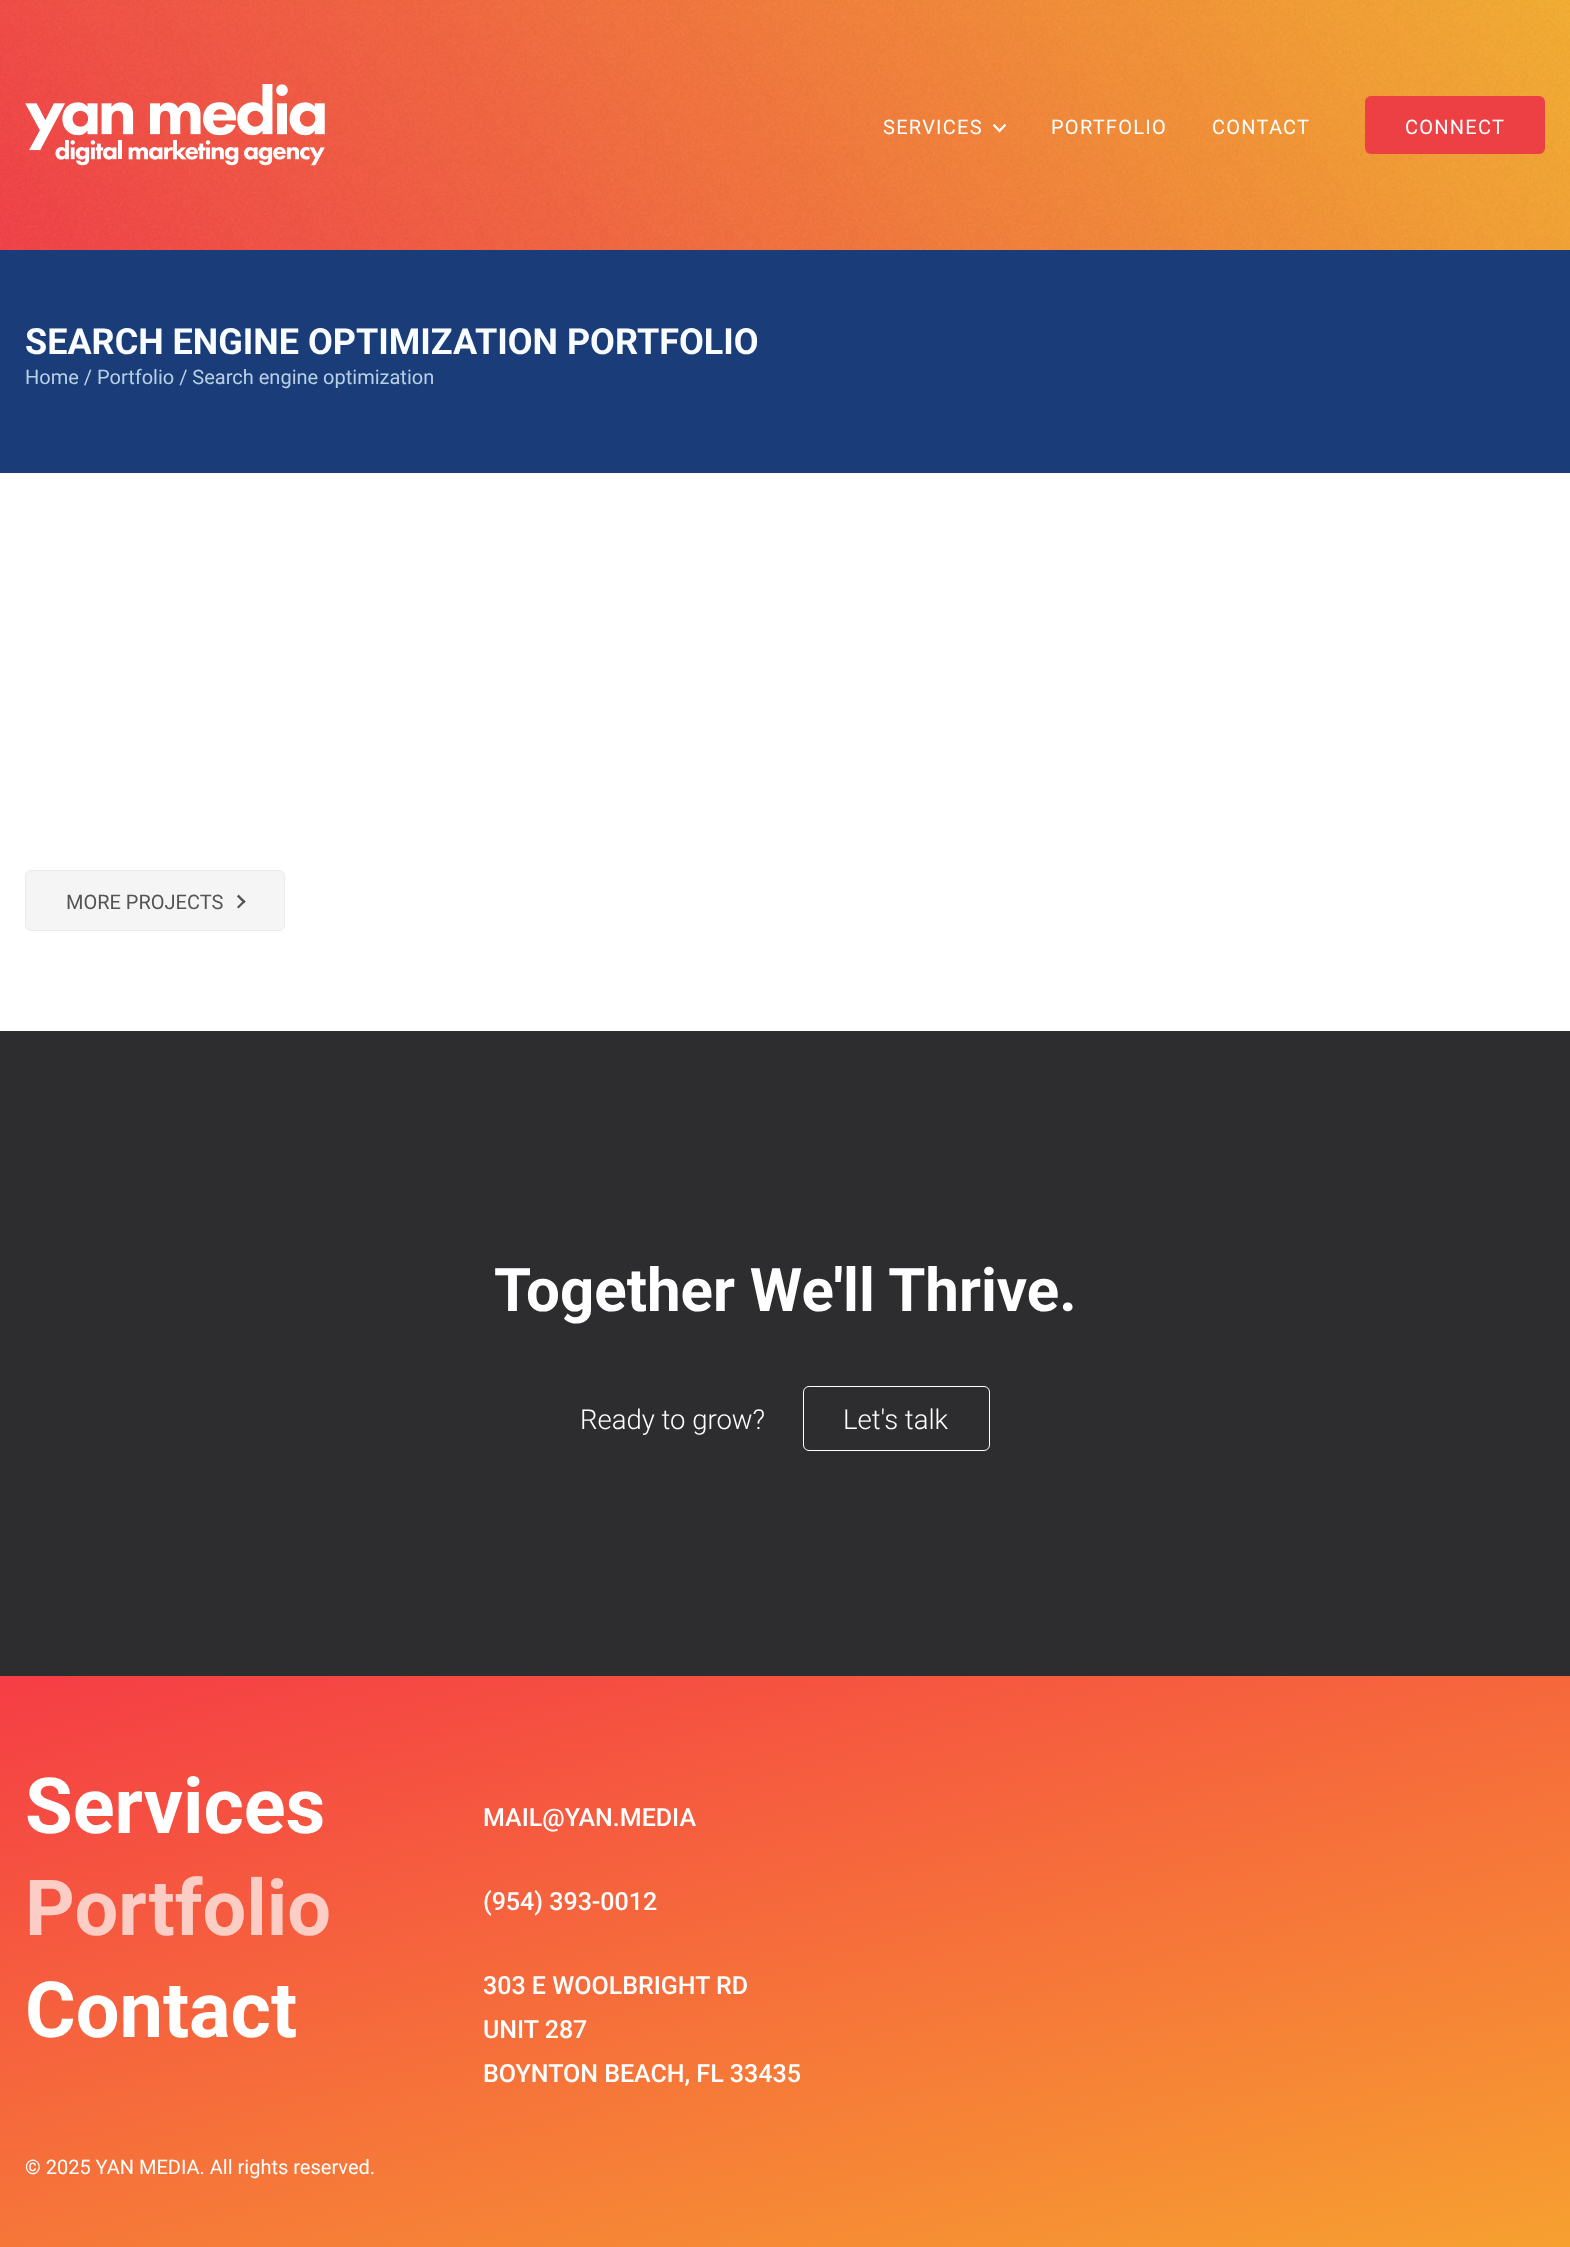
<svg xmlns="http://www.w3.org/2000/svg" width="1570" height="2247">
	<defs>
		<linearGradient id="g1" gradientUnits="userSpaceOnUse" x1="644" y1="1504" x2="940" y2="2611"><stop offset="0" stop-color="#F53D45" /><stop offset="1" stop-color="#F7B42C" /></linearGradient>
	</defs>
	<rect width="100%" height="100%" fill="#FFFFFF" />
	<image x="0" y="0" width="1570" height="250" href="assets/img1.png" />
	<image x="25" y="84" width="300" height="82" href="assets/img2.png" />
	<text x="883" y="134" font-family="Roboto" font-size="20" letter-spacing="1.25" fill="#FFFFFF">SERVICES</text>
	<image x="993" y="124" width="13" height="9" href="assets/img3.png" />
	<g font-family="Roboto" font-size="20" letter-spacing="1.25" fill="#FFFFFF">
		<text x="1051" y="134">PORTFOLIO</text>
		<text x="1212" y="134">CONTACT</text>
	</g>
	<rect x="1365" y="96" width="180" height="58" rx="6" fill="#EC4045" />
	<text x="1405" y="134" font-family="Roboto" font-size="20" letter-spacing="1.25" fill="#FFFFFF">CONNECT</text>
	<rect x="0" y="250" width="1570" height="223" fill="#1A3D7A" />
	<text x="25" y="354" font-family="Roboto" font-size="36" font-weight="700" fill="#F9FDFF">SEARCH ENGINE OPTIMIZATION PORTFOLIO</text>
	<text x="25" y="384" font-family="Roboto" font-size="20" fill="#B8D0E4">Home / Portfolio / Search engine optimization</text>
	<rect x="25.5" y="870.5" width="259" height="60" rx="5.5" fill="#F5F5F5" stroke="#EBEBEB" />
	<text x="66" y="909" font-family="Roboto" font-size="20" fill="#555555">MORE PROJECTS</text>
	<path d="M237 896.5L238.5 894.5L245.5 901.5L244 903.5Z" fill="#545454" />
	<path d="M237 907L244 900L245.5 901.5L238.5 908.5Z" fill="#545454" />
	<rect x="0" y="1031" width="1570" height="645" fill="#2D2D2F" />
	<text x="494" y="1311" font-family="Roboto" font-size="60" font-weight="700" fill="#FFFFFF">Together We'll Thrive.</text>
	<text x="580" y="1429" font-family="Roboto" font-size="27.5" font-weight="300" fill="#FFFFFF">Ready to grow?</text>
	<rect x="803.5" y="1386.5" width="186" height="64" rx="5.5" fill="none" stroke="#FFFFFF" />
	<text x="843" y="1429" font-family="Roboto" font-size="27.5" font-weight="300" fill="#FFFFFF">Let's talk</text>
	<rect x="0" y="1676" width="1570" height="571" fill="url(#g1)" />
	<text x="25" y="1833" font-family="Roboto" font-size="77.5" font-weight="700" fill="#FFFFFF">Services</text>
	<text x="25" y="1935" font-family="Roboto" font-size="77.5" font-weight="700" fill="#FCCDC5">Portfolio</text>
	<text x="25" y="2037" font-family="Roboto" font-size="77.5" font-weight="700" fill="#FFFFFF">Contact</text>
	<g font-family="Roboto" font-size="25" font-weight="500" fill="#FFFFFF">
		<text x="483" y="1826">MAIL@YAN.MEDIA</text>
		<text x="483" y="1910">(954) 393-0012</text>
		<text x="483" y="1994">303 E WOOLBRIGHT RD</text>
		<text x="483" y="2038">UNIT 287</text>
		<text x="483" y="2082">BOYNTON BEACH, FL 33435</text>
	</g>
	<text x="25" y="2174" font-family="Roboto" font-size="20" fill="#FFFFFF">© 2025 YAN MEDIA. All rights reserved.</text>
</svg>
